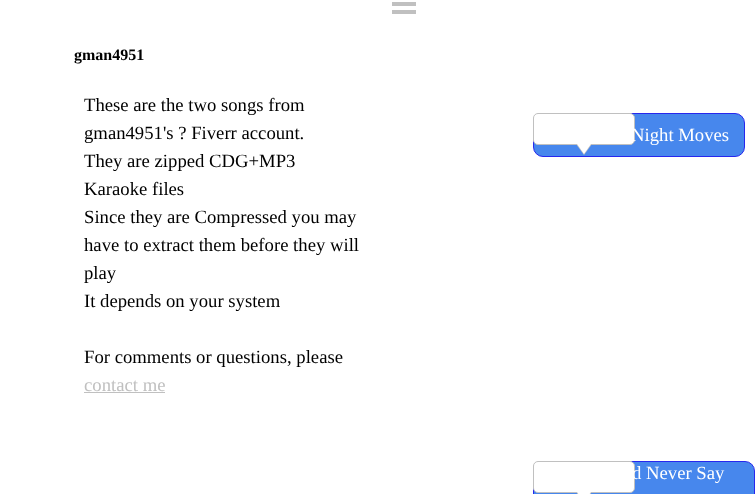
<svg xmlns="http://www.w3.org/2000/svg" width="756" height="494">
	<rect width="100%" height="100%" fill="#FFFFFF" />
	<rect x="392" y="2" width="24" height="4" fill="#C0C0C0" />
	<rect x="392" y="10" width="24" height="4" fill="#C0C0C0" />
	<text x="74" y="60" font-family="Liberation Serif" font-size="16" font-weight="700" fill="#000000">gman4951</text>
	<g font-family="Liberation Serif" font-size="18.7" fill="#000000">
		<text x="84" y="111">These are the two songs from</text>
		<text x="84" y="139">gman4951's ? Fiverr account.</text>
		<text x="84" y="167">They are zipped CDG+MP3</text>
		<text x="84" y="195">Karaoke files</text>
		<text x="84" y="223">Since they are Compressed you may</text>
		<text x="84" y="251">have to extract them before they will</text>
		<text x="84" y="279">play</text>
		<text x="84" y="307">It depends on your system</text>
		<text x="84" y="363">For comments or questions, please</text>
	</g>
	<text x="84" y="391" font-family="Liberation Serif" font-size="18.7" fill="#C0C0C0">contact me</text>
	<rect x="84" y="392" width="81" height="1" fill="#C0C0C0" />
	<rect x="533.5" y="113.5" width="211" height="43" rx="9.5" fill="#4787ED" stroke="#2727ED" />
	<rect x="533.5" y="113.5" width="101" height="31" rx="4.5" fill="#FFFFFF" stroke="#C0C0C0" />
	<path d="M576 144H592L584 155Z" fill="#C0C0C0" />
	<path d="M577 144H591L584 154Z" fill="#FFFFFF" />
	<text x="631" y="141" font-family="Liberation Serif" font-size="18.7" fill="#FFFFFF">Night Moves</text>
	<rect x="533.5" y="461.5" width="221" height="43" rx="9.5" fill="#4787ED" stroke="#2727ED" />
	<rect x="533.5" y="461.5" width="101" height="31" rx="4.5" fill="#FFFFFF" stroke="#C0C0C0" />
	<path d="M576 492H592L584 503Z" fill="#C0C0C0" />
	<path d="M577 492H591L584 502Z" fill="#FFFFFF" />
	<text x="632" y="479" font-family="Liberation Serif" font-size="18.7" fill="#FFFFFF">d Never Say</text>
</svg>
